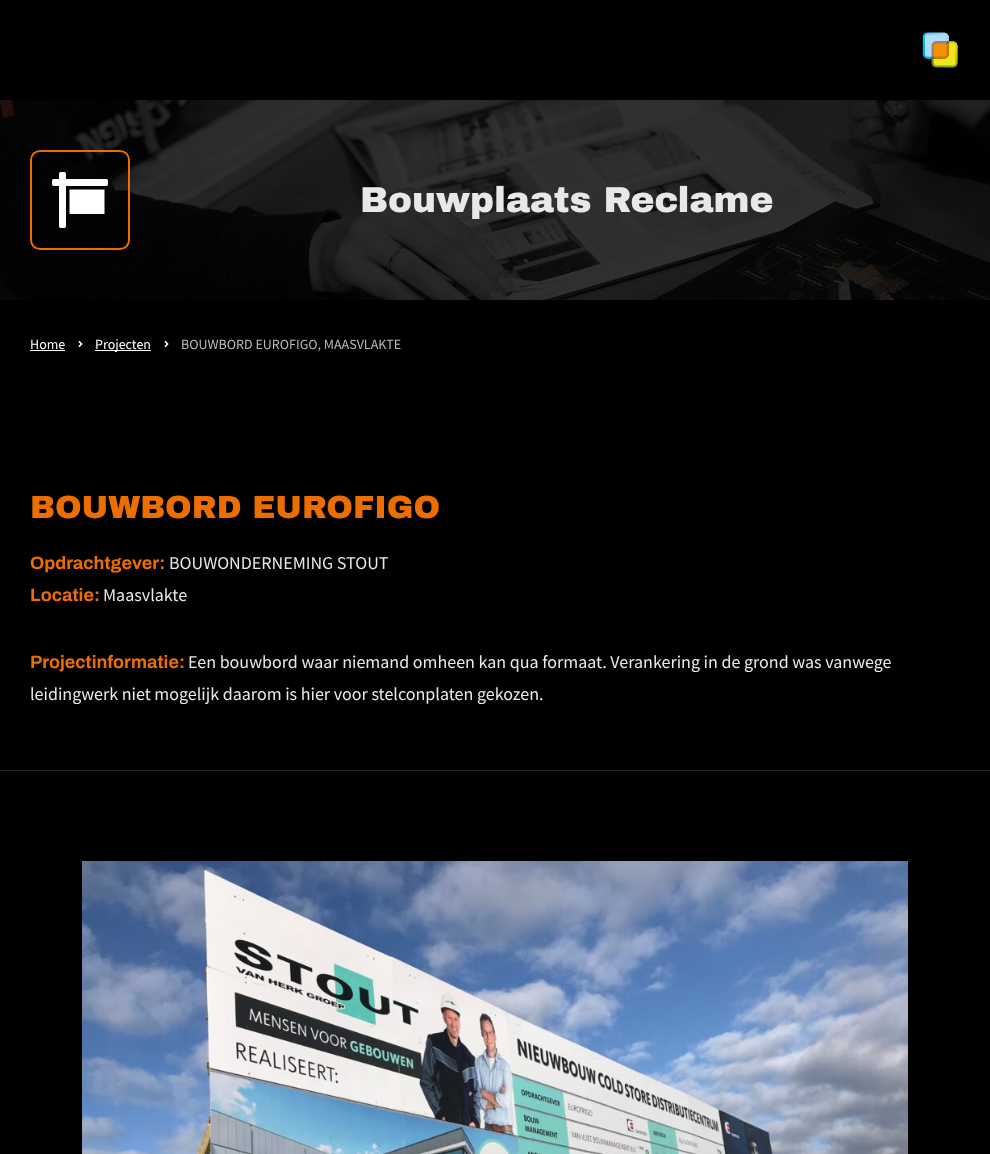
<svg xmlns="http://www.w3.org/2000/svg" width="990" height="1154">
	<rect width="100%" height="100%" fill="#000000" />
	<image x="922" y="32" width="36" height="36" href="assets/img1.png" />
	<image x="0" y="100" width="990" height="200" href="assets/img2.png" />
	<rect x="31" y="151" width="98" height="98" rx="9" fill="#000000" fill-opacity="0.2" stroke="#ED6E00" stroke-width="2" />
	<image x="52" y="172" width="56" height="56" href="assets/img3.png" />
	<text x="360" y="212" font-family="Archivo Black" font-size="36" font-weight="900" fill="#E8E8E8">Bouwplaats Reclame</text>
	<text x="30" y="349" font-family="Source Sans Pro" font-size="14" fill="#FFFFFF">Home</text>
	<rect x="30" y="350" width="35" height="1" fill="#FFFFFF" />
	<image x="78" y="340" width="5" height="8" href="assets/img4.png" />
	<rect x="95" y="350" width="56" height="1" fill="#FFFFFF" />
	<text x="95" y="349" font-family="Source Sans Pro" font-size="14" fill="#FFFFFF">Projecten</text>
	<image x="164" y="340" width="5" height="8" href="assets/img4.png" />
	<text x="181" y="349" font-family="Source Sans Pro" font-size="14" fill="#BABABA">BOUWBORD EUROFIGO, MAASVLAKTE</text>
	<text x="30" y="518" font-family="Archivo Black" font-size="32" font-weight="900" fill="#ED6E00">BOUWBORD EUROFIGO</text>
	<text x="30" y="569" font-family="Archivo" font-size="18" font-weight="600" fill="#ED6E00">Opdrachtgever:</text>
	<text x="169" y="569" font-family="Source Sans Pro" font-size="18" fill="#E8E8E8">BOUWONDERNEMING STOUT</text>
	<text x="30" y="601" font-family="Archivo" font-size="18" font-weight="600" fill="#ED6E00">Locatie:</text>
	<text x="103" y="601" font-family="Source Sans Pro" font-size="18" fill="#E8E8E8">Maasvlakte</text>
	<text x="30" y="668" font-family="Archivo" font-size="18" font-weight="600" fill="#ED6E00">Projectinformatie:</text>
	<g font-family="Source Sans Pro" font-size="18" fill="#E8E8E8">
		<text x="188" y="668">Een bouwbord waar niemand omheen kan qua formaat. Verankering in de grond was vanwege</text>
		<text x="30" y="700">leidingwerk niet mogelijk daarom is hier voor stelconplaten gekozen.</text>
	</g>
	<rect x="0" y="770" width="990" height="1" fill="#262626" />
	<image x="82" y="861" width="826" height="293" href="assets/img5.png" />
</svg>
